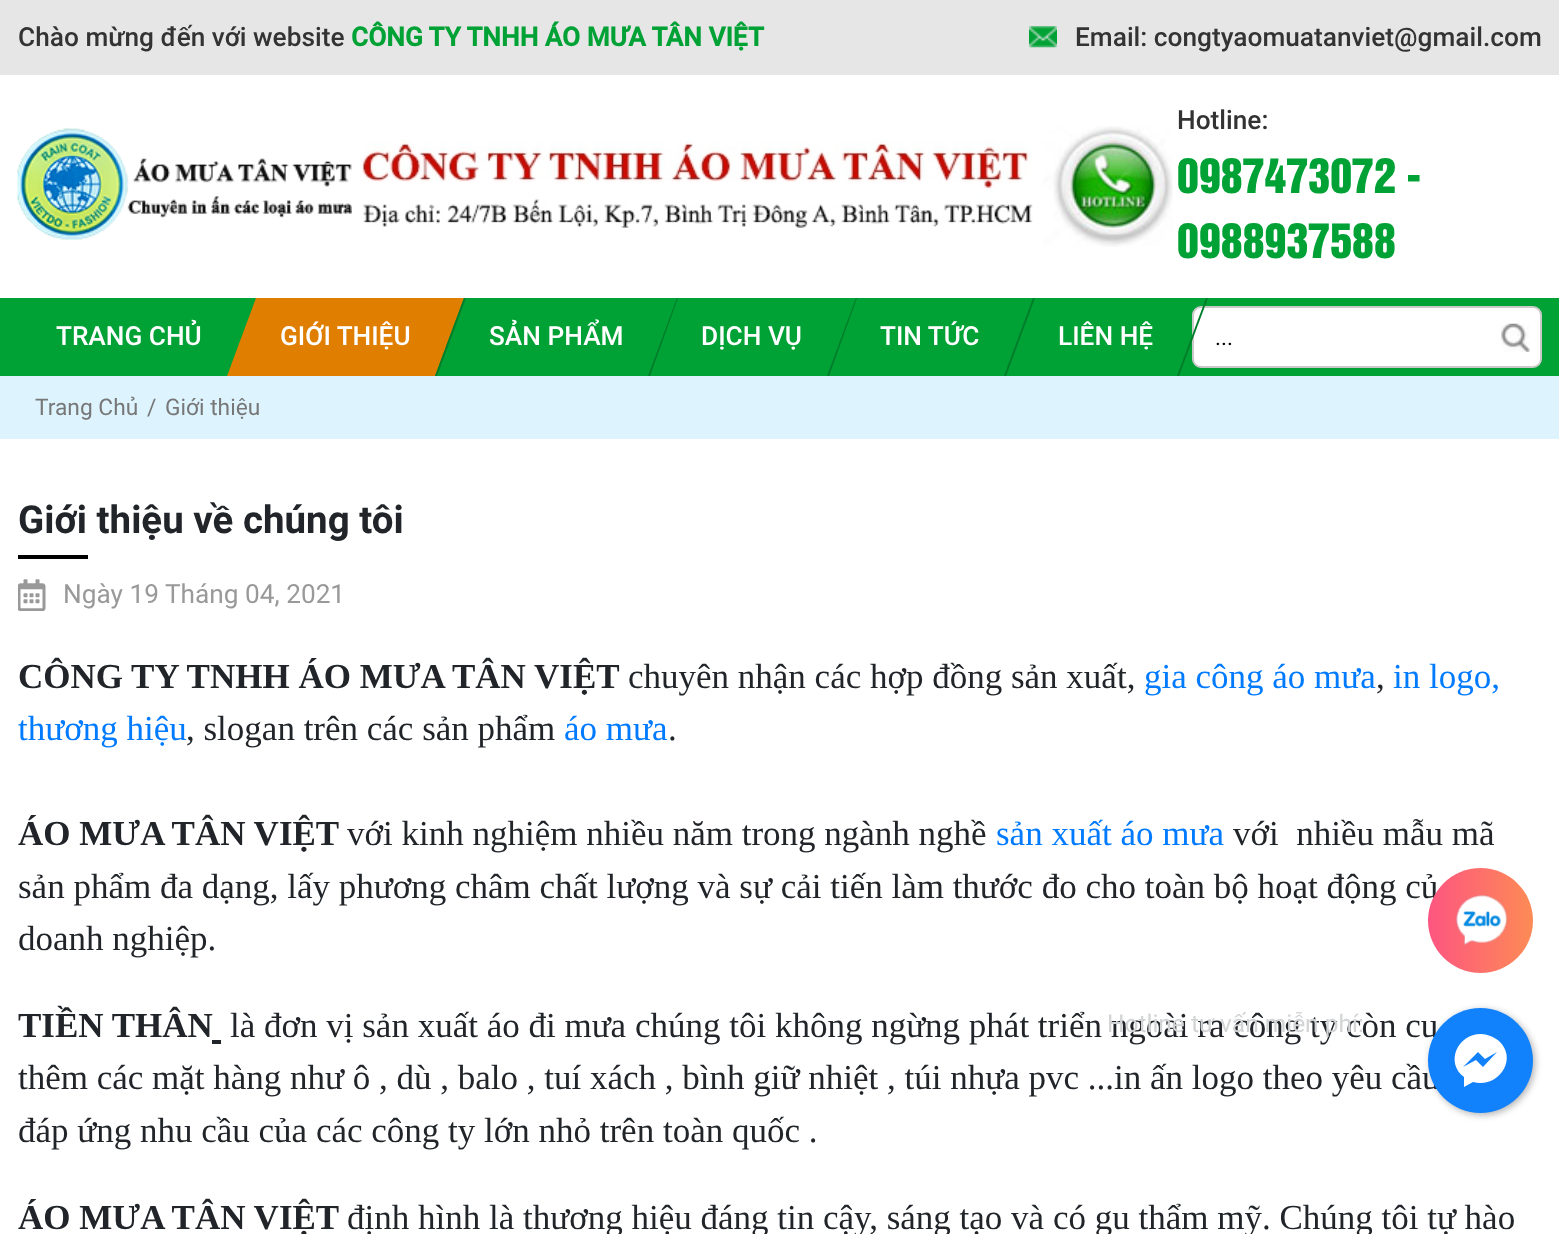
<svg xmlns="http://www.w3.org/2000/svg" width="1559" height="1234">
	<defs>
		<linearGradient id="g1" gradientUnits="userSpaceOnUse" x1="1428" y1="921" x2="1533" y2="921"><stop offset="0" stop-color="#FD5581" /><stop offset="1" stop-color="#FD8B55" /></linearGradient>
	</defs>
	<rect width="100%" height="100%" fill="#FFFFFF" />
	<rect x="0" y="0" width="1559" height="75" fill="#E6E6E6" />
	<text x="18" y="46" font-family="Roboto" font-size="26.25" font-weight="500" fill="#333333">Chào mừng đến với website</text>
	<text x="351" y="46" font-family="Roboto" font-size="26.25" font-weight="700" fill="#00A135">CÔNG TY TNHH ÁO MƯA TÂN VIỆT</text>
	<image x="1029" y="26" width="28" height="22" href="assets/img1.png" />
	<text x="1075" y="46" font-family="Roboto" font-size="26.25" font-weight="500" fill="#333333">Email: congtyaomuatanviet@gmail.com</text>
	<image x="17" y="128" width="335" height="112" href="assets/img2.png" />
	<image x="359" y="140" width="674" height="88" href="assets/img3.png" />
	<image x="1043" y="126" width="130" height="121" href="assets/img4.png" />
	<text x="1177" y="129" font-family="Roboto" font-size="26.25" font-weight="500" fill="#333333">Hotline:</text>
	<g font-family="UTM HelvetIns" font-size="43.75" fill="#00A135">
		<text x="1177" y="193">0987473072 -</text>
		<text x="1177" y="258">0988937588</text>
	</g>
	<rect x="0" y="298" width="1559" height="78" fill="#00A135" />
	<text x="56" y="345" font-family="Roboto" font-size="26.25" font-weight="500" fill="#FFFFFF">TRANG CHỦ</text>
	<path d="M256 298H464L435 376H227Z" fill="#E07E00" />
	<text x="280" y="345" font-family="Roboto" font-size="26.25" font-weight="500" fill="#FFFFFF">GIỚI THIỆU</text>
	<path d="M464 298H466L437 376H435Z" fill="#007D2A" />
	<text x="489" y="345" font-family="Roboto" font-size="26.25" font-weight="500" fill="#FFFFFF">SẢN PHẨM</text>
	<path d="M677 298H678L650 376H648Z" fill="#007D2A" />
	<text x="701" y="345" font-family="Roboto" font-size="26.25" font-weight="500" fill="#FFFFFF">DỊCH VỤ</text>
	<path d="M856 298H857L829 376H827Z" fill="#007D2A" />
	<text x="880" y="345" font-family="Roboto" font-size="26.25" font-weight="500" fill="#FFFFFF">TIN TỨC</text>
	<path d="M1033 298H1035L1006 376H1004Z" fill="#007D2A" />
	<text x="1058" y="345" font-family="Roboto" font-size="26.25" font-weight="500" fill="#FFFFFF">LIÊN HỆ</text>
	<rect x="1193" y="307" width="348" height="60" rx="8" fill="#FFFFFF" stroke="#CACACA" stroke-width="2" />
	<path d="M1206 298H1208L1179 376H1177Z" fill="#007D2A" />
	<text x="1215" y="345" font-family="Roboto" font-size="22.75" fill="#000000">...</text>
	<image x="1501" y="323" width="29" height="29" href="assets/img5.png" />
	<rect x="0" y="376" width="1559" height="63" fill="#DDF4FF" />
	<g font-family="Roboto" font-size="22.75" fill="#777777">
		<text x="35" y="415">Trang Chủ</text>
		<text x="147" y="415">/</text>
		<text x="165" y="415">Giới thiệu</text>
	</g>
	<text x="18" y="533" font-family="'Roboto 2'" font-size="38.5" font-weight="700" fill="#212529">Giới thiệu về chúng tôi</text>
	<rect x="18" y="555" width="70" height="4" fill="#000000" />
	<image x="18" y="579" width="28" height="32" href="assets/img6.png" />
	<text x="63" y="603" font-family="Roboto" font-size="26.25" fill="#999999">Ngày 19 Tháng 04, 2021</text>
	<text x="18" y="688" font-family="Liberation Serif" font-size="35" font-weight="700" fill="#212529">CÔNG TY TNHH ÁO MƯA TÂN VIỆT</text>
	<text x="628" y="688" font-family="Liberation Serif" font-size="35" fill="#212529">chuyên nhận các hợp đồng sản xuất,</text>
	<text x="1144" y="688" font-family="Liberation Serif" font-size="35" fill="#007BFF">gia công áo mưa</text>
	<text x="1376" y="688" font-family="Liberation Serif" font-size="35" fill="#212529">,</text>
	<g font-family="Liberation Serif" font-size="35" fill="#007BFF">
		<text x="1393" y="688">in logo,</text>
		<text x="18" y="740">thương hiệu</text>
	</g>
	<text x="186" y="740" font-family="Liberation Serif" font-size="35" fill="#212529">, slogan trên các sản phẩm</text>
	<text x="564" y="740" font-family="Liberation Serif" font-size="35" fill="#007BFF">áo mưa</text>
	<text x="668" y="740" font-family="Liberation Serif" font-size="35" fill="#212529">.</text>
	<text x="18" y="845" font-family="Liberation Serif" font-size="35" font-weight="700" fill="#212529">ÁO MƯA TÂN VIỆT</text>
	<text x="347" y="845" font-family="Liberation Serif" font-size="35" fill="#212529">với kinh nghiệm nhiều năm trong ngành nghề</text>
	<text x="996" y="845" font-family="Liberation Serif" font-size="35" fill="#007BFF">sản xuất áo mưa</text>
	<g font-family="Liberation Serif" font-size="35" fill="#212529">
		<text x="1233" y="845" xml:space="preserve">với  nhiều mẫu mã</text>
		<text x="18" y="898">sản phẩm đa dạng, lấy phương châm chất lượng và sự cải tiến làm thước đo cho toàn bộ hoạt động củ</text>
		<text x="18" y="950">doanh nghiệp.</text>
	</g>
	<text x="18" y="1037" font-family="Liberation Serif" font-size="35" font-weight="700" fill="#212529">TIỀN THÂN</text>
	<text x="230" y="1037" font-family="Liberation Serif" font-size="35" fill="#212529">là đơn vị sản xuất áo đi mưa chúng tôi không ngừng phát triển ngoài ra công ty còn cu</text>
	<rect x="212" y="1040" width="9" height="4" fill="#212529" />
	<g font-family="Liberation Serif" font-size="35" fill="#212529">
		<text x="18" y="1089">thêm các mặt hàng như ô , dù , balo , tuí xách , bình giữ nhiệt , túi nhựa pvc ...in ấn logo theo yêu cầu</text>
		<text x="18" y="1142">đáp ứng nhu cầu của các công ty lớn nhỏ trên toàn quốc .</text>
	</g>
	<text x="18" y="1229" font-family="Liberation Serif" font-size="35" font-weight="700" fill="#212529">ÁO MƯA TÂN VIỆT</text>
	<text x="347" y="1229" font-family="Liberation Serif" font-size="35" fill="#212529">định hình là thương hiệu đáng tin cậy, sáng tạo và có gu thẩm mỹ. Chúng tôi tự hào</text>
	<circle cx="1480.5" cy="920.5" r="52.5" fill="url(#g1)" />
	<image x="1456" y="895" width="51" height="50" href="assets/img7.png" />
	<text x="1107" y="1032" font-family="Roboto" font-size="24.5" fill="#D3D4D5">Hotline tư vấn miễn phí:</text>
	<rect x="1430" y="1010" width="105" height="105" rx="52.5" fill="#000000" fill-opacity="0.3" filter="blur(3.5px)" />
	<circle cx="1480.5" cy="1060.5" r="52.5" fill="#1182FC" />
	<path d="M1481 1034C1457 1034 1445 1063 1464 1077V1087L1473 1082C1497 1089 1519 1060 1499 1041C1494 1037 1487 1034 1481 1034ZM1483 1067L1476 1060L1463 1067L1478 1052L1485 1059L1497 1052Z" fill="#FFFFFF" />
</svg>
